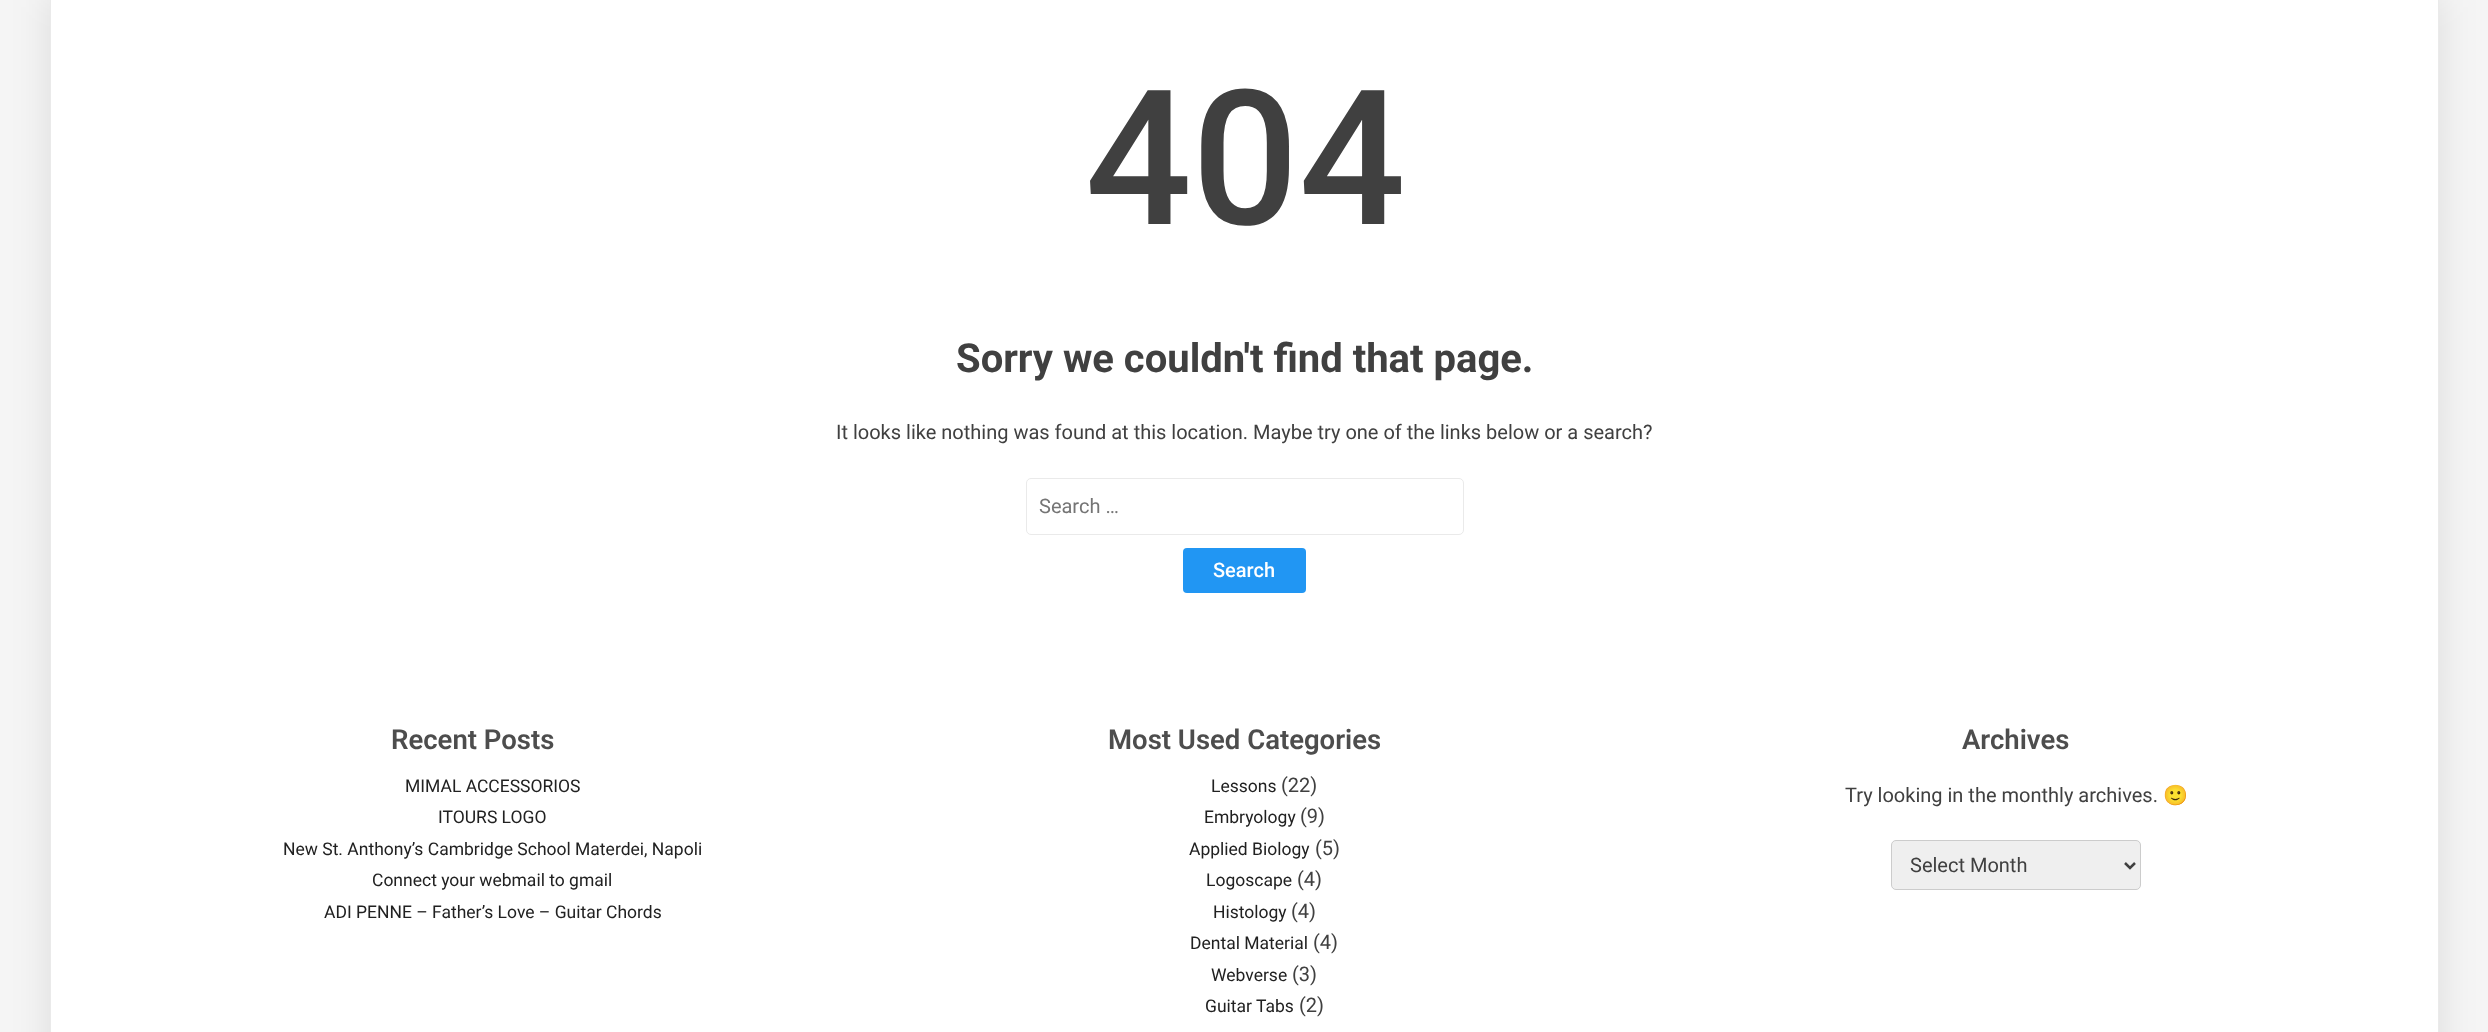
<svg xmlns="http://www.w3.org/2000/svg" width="2488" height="1032">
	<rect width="100%" height="100%" fill="#F5F5F5" />
	<rect x="50" y="-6" width="2389" height="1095" fill="#000000" fill-opacity="0.1" filter="blur(19px)" />
	<rect x="50.5" y="-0.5" width="2388" height="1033" fill="#FFFFFF" stroke="#EAEAEA" />
	<text x="1085" y="224" font-family="Roboto" font-size="188" font-weight="500" fill="#404040">404</text>
	<text x="956" y="372" font-family="Roboto" font-size="40" font-weight="700" fill="#404040">Sorry we couldn't find that page.</text>
	<text x="836" y="439" font-family="Roboto" font-size="20" fill="#404040">It looks like nothing was found at this location. Maybe try one of the links below or a search?</text>
	<rect x="1026.5" y="478.5" width="437" height="56" rx="4.5" fill="none" stroke="#EAEAEA" />
	<text x="1039" y="513" font-family="Roboto" font-size="20" fill="#757575">Search …</text>
	<rect x="1183" y="548" width="123" height="45" rx="4" fill="#2196F3" />
	<text x="1213" y="577" font-family="Roboto" font-size="20" font-weight="500" fill="#FFFFFF">Search</text>
	<text x="391" y="749" font-family="Roboto" font-size="27.5" font-weight="600" fill="#4D4D4D">Recent Posts</text>
	<g font-family="Roboto" font-size="17.5" fill="#212121">
		<text x="405" y="792">MIMAL ACCESSORIOS</text>
		<text x="438" y="823">ITOURS LOGO</text>
		<text x="283" y="855">New St. Anthony’s Cambridge School Materdei, Napoli</text>
		<text x="372" y="886">Connect your webmail to gmail</text>
		<text x="324" y="918">ADI PENNE – Father’s Love – Guitar Chords</text>
	</g>
	<text x="1108" y="749" font-family="Roboto" font-size="27.5" font-weight="600" fill="#4D4D4D">Most Used Categories</text>
	<text x="1211" y="792" font-family="Roboto" font-size="17.5" fill="#212121">Lessons</text>
	<text x="1281" y="792" font-family="Roboto" font-size="20" fill="#404040">(22)</text>
	<text x="1204" y="823" font-family="Roboto" font-size="17.5" fill="#212121">Embryology</text>
	<text x="1300" y="823" font-family="Roboto" font-size="20" fill="#404040">(9)</text>
	<text x="1189" y="855" font-family="Roboto" font-size="17.5" fill="#212121">Applied Biology</text>
	<text x="1315" y="855" font-family="Roboto" font-size="20" fill="#404040">(5)</text>
	<text x="1206" y="886" font-family="Roboto" font-size="17.5" fill="#212121">Logoscape</text>
	<text x="1297" y="886" font-family="Roboto" font-size="20" fill="#404040">(4)</text>
	<text x="1213" y="918" font-family="Roboto" font-size="17.5" fill="#212121">Histology</text>
	<text x="1291" y="918" font-family="Roboto" font-size="20" fill="#404040">(4)</text>
	<text x="1190" y="949" font-family="Roboto" font-size="17.5" fill="#212121">Dental Material</text>
	<text x="1313" y="949" font-family="Roboto" font-size="20" fill="#404040">(4)</text>
	<text x="1211" y="981" font-family="Roboto" font-size="17.5" fill="#212121">Webverse</text>
	<text x="1292" y="981" font-family="Roboto" font-size="20" fill="#404040">(3)</text>
	<text x="1205" y="1012" font-family="Roboto" font-size="17.5" fill="#212121">Guitar Tabs</text>
	<text x="1299" y="1012" font-family="Roboto" font-size="20" fill="#404040">(2)</text>
	<text x="1962" y="749" font-family="Roboto" font-size="27.5" font-weight="600" fill="#4D4D4D">Archives</text>
	<text x="1845" y="802" font-family="Roboto" font-size="20" fill="#404040">Try looking in the monthly archives.</text>
	<text x="2163" y="802" font-family="Noto Color Emoji" font-size="20" fill="#404040">🙂</text>
	<rect x="1891.5" y="840.5" width="249" height="49" rx="4.5" fill="#EFEFEF" stroke="#CCCCCC" />
	<path d="M2125 863L2130 868L2135 863" fill="none" stroke="#404040" stroke-width="2.5" />
	<text x="1910" y="872" font-family="Roboto" font-size="20" fill="#404040">Select Month</text>
</svg>
